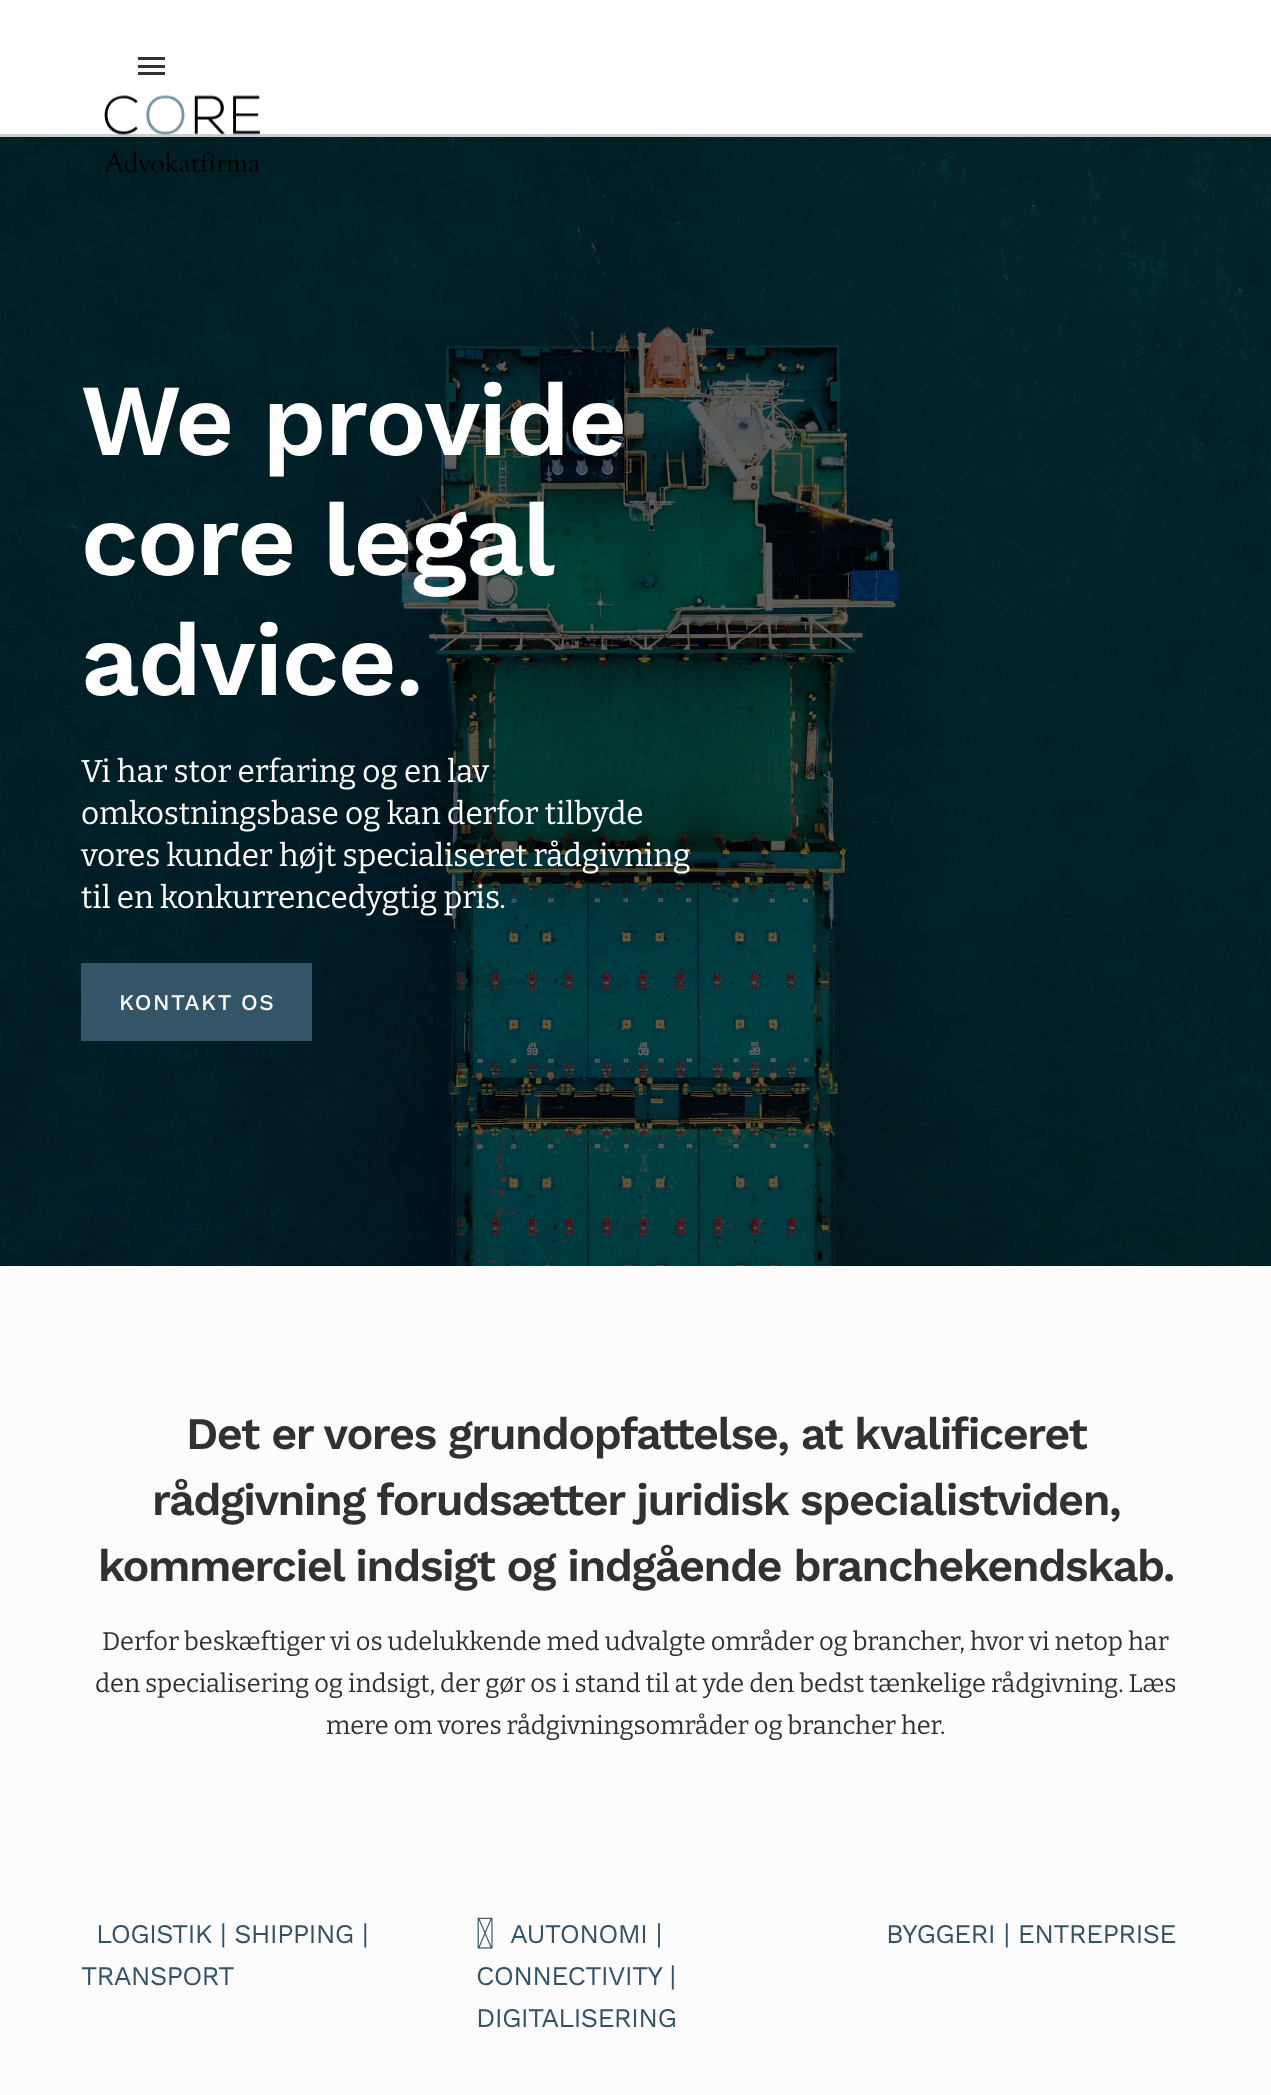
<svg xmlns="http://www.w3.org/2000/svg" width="1271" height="2095">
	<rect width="100%" height="100%" fill="#FCFCFC" />
	<rect x="0" y="0" width="1271" height="134" fill="#FFFFFF" />
	<rect x="0" y="134" width="1271" height="3" fill="#CCCCCC" />
	<rect x="138" y="57" width="27" height="3" fill="#323232" />
	<rect x="138" y="65" width="27" height="3" fill="#323232" />
	<rect x="138" y="72" width="27" height="3" fill="#323232" />
	<image x="0" y="137" width="1271" height="1129" href="assets/img2.png" />
	<image x="104" y="95" width="156" height="78" href="assets/img1.png" />
	<g font-family="Work Sans" font-size="102" font-weight="600" letter-spacing="-1.5" fill="#FFFFFF">
		<text x="81" y="455">We provide</text>
		<text x="81" y="575" word-spacing="-2">core legal</text>
		<text x="81" y="695">advice.</text>
	</g>
	<g font-family="Bitter" font-size="31.5" letter-spacing="-0.08" fill="#FFFFFF">
		<text x="81" y="782">Vi har stor erfaring og en lav</text>
		<text x="81" y="824">omkostningsbase og kan derfor tilbyde</text>
		<text x="81" y="866">vores kunder højt specialiseret rådgivning</text>
		<text x="81" y="908">til en konkurrencedygtig pris.</text>
	</g>
	<rect x="81" y="963" width="231" height="78" fill="#335567" />
	<text x="119" y="1010" font-family="Work Sans" font-size="22.5" font-weight="500" letter-spacing="1.5" fill="#FFFFFF">KONTAKT OS</text>
	<g font-family="Work Sans" font-size="45" font-weight="600" letter-spacing="-1.5" fill="#303132">
		<text x="186" y="1449">Det er vores grundopfattelse, at kvalificeret</text>
		<text x="152" y="1515">rådgivning forudsætter juridisk specialistviden,</text>
		<text x="98" y="1581">kommerciel indsigt og indgående branchekendskab.</text>
	</g>
	<g font-family="Bitter" font-size="25.5" letter-spacing="-0.08" fill="#303132">
		<text x="102" y="1650">Derfor beskæftiger vi os udelukkende med udvalgte områder og brancher, hvor vi netop har</text>
		<text x="95" y="1692">den specialisering og indsigt, der gør os i stand til at yde den bedst tænkelige rådgivning. Læs</text>
		<text x="326" y="1734">mere om vores rådgivningsområder og brancher her.</text>
	</g>
	<g font-family="Work Sans" font-size="27" letter-spacing="-0.75" fill="#345466">
		<text x="96" y="1943">LOGISTIK | SHIPPING |</text>
		<text x="81" y="1985">TRANSPORT</text>
	</g>
	<image x="477" y="1917" width="16" height="32" href="assets/img3.png" />
	<g font-family="Work Sans" font-size="27" letter-spacing="-0.75" fill="#345466">
		<text x="510" y="1943">AUTONOMI |</text>
		<text x="476" y="1985">CONNECTIVITY |</text>
		<text x="476" y="2027">DIGITALISERING</text>
		<text x="886" y="1943">BYGGERI | ENTREPRISE</text>
	</g>
</svg>
